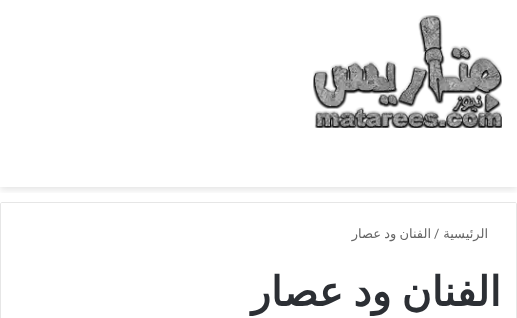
<svg xmlns="http://www.w3.org/2000/svg" width="517" height="318">
	<defs>
		<clipPath id="clip1"><rect x="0" y="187" width="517" height="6" /></clipPath>
	</defs>
	<rect width="100%" height="100%" fill="#FFFFFF" />
	<g clip-path="url(#clip1)">
		<rect x="0" y="3" width="517" height="187" fill="#000000" fill-opacity="0.1" filter="blur(3.5px)" />
	</g>
	<image x="313" y="15" width="189" height="113" href="assets/img1.png" />
	<path d="M2 202.5H515C516 202.5 516.5 203 516.5 204V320.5H.5V204C.5 203 1 202.5 2 202.5Z" fill="none" stroke="#E6E6E6" />
	<text x="488" y="238" font-family="DejaVu Sans" font-size="13" direction="rtl" fill="#666666">الرئيسية</text>
	<text x="434" y="238" font-family="Roboto" font-size="13" fill="#666666">/</text>
	<text x="431" y="238" word-spacing="-1" font-family="DejaVu Sans" font-size="13" direction="rtl" fill="#666666">الفنان ود عصار</text>
	<text x="501" y="306" word-spacing="-3" font-family="DejaVu Sans" font-size="41" font-weight="700" direction="rtl" fill="#2C2F34">الفنان ود عصار</text>
</svg>
